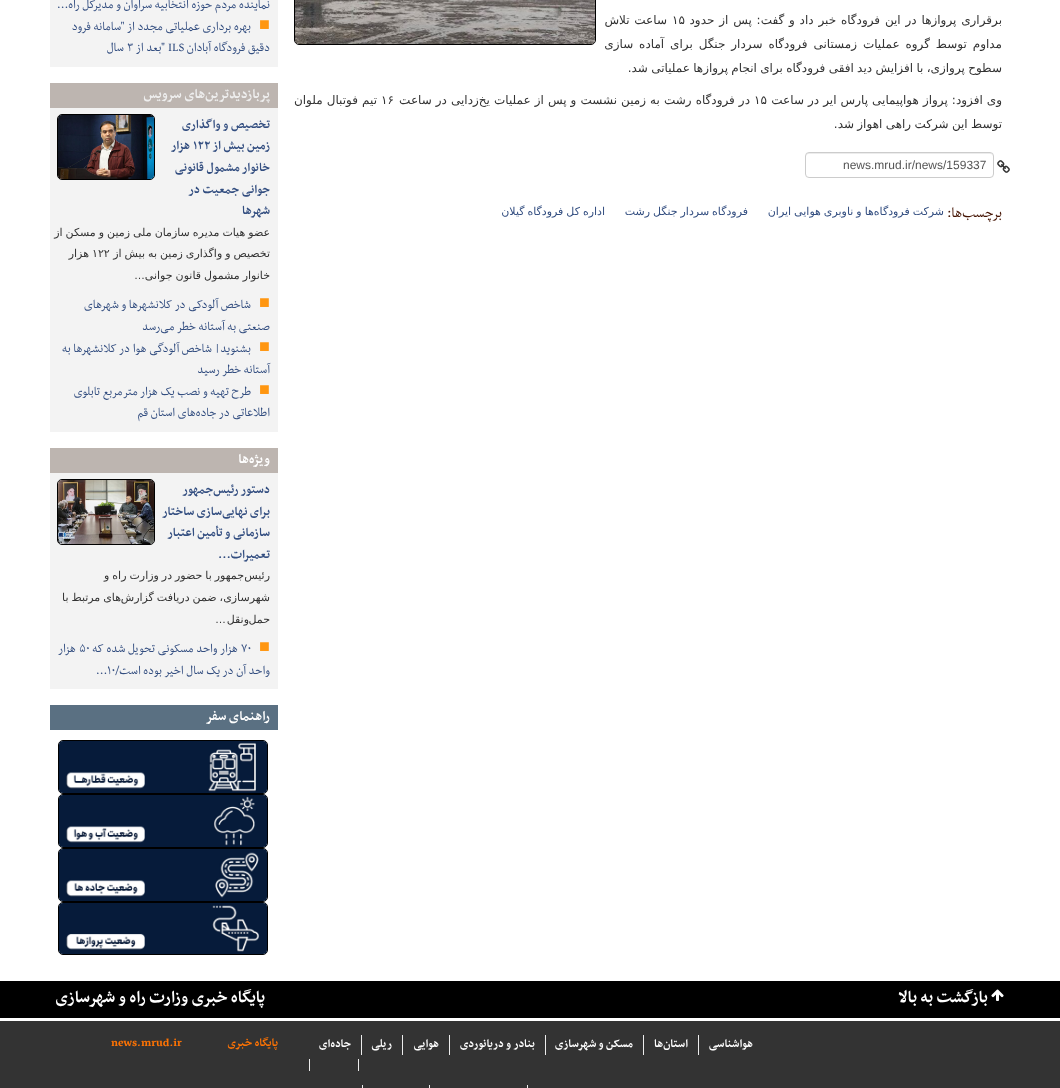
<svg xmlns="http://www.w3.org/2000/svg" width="1060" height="1088">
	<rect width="100%" height="100%" fill="#FFFFFF" />
	<rect x="294.5" y="-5.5" width="301" height="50" rx="4.5" fill="none" stroke="#000000" />
	<image x="295" y="0" width="300" height="44" href="assets/img1.png" />
	<text x="1002" y="24" word-spacing="1" font-family="DejaVu Sans" font-size="12" direction="rtl" fill="#333333">برقراری پروازها در این فرودگاه خبر داد و گفت: پس از حدود</text>
	<text x="672" y="24" font-family="DejaVu Sans" font-size="12" fill="#333333">۱۵</text>
	<g font-family="DejaVu Sans" font-size="12" direction="rtl" fill="#333333">
		<text x="667" y="24" word-spacing="1">ساعت تلاش</text>
		<text x="1002" y="48" word-spacing="2.1">مداوم توسط گروه عملیات زمستانی فرودگاه سردار جنگل برای آماده سازی</text>
		<text x="1002" y="72" word-spacing="-0.5">سطوح پروازی، با افزایش دید افقی فرودگاه برای انجام پروازها عملیاتی شد.</text>
		<text x="1002" y="104" word-spacing="0.25">وی افزود: پرواز هواپیمایی پارس ایر در ساعت</text>
	</g>
	<text x="754" y="104" font-family="DejaVu Sans" font-size="12" fill="#333333">۱۵</text>
	<text x="750" y="104" word-spacing="0.25" font-family="DejaVu Sans" font-size="12" direction="rtl" fill="#333333">در فرودگاه رشت به زمین نشست و پس از عملیات یخ‌زدایی در ساعت</text>
	<text x="381" y="104" font-family="DejaVu Sans" font-size="12" fill="#333333">۱۶</text>
	<g font-family="DejaVu Sans" font-size="12" direction="rtl" fill="#333333">
		<text x="377" y="104" word-spacing="0.25">تیم فوتبال ملوان</text>
		<text x="1002" y="128" word-spacing="-0.5">توسط این شرکت راهی اهواز شد.</text>
	</g>
	<image x="997" y="160" width="13" height="13" href="assets/img2.png" />
	<path d="M809 154H990C992 154 993 155 993 157C993 155 992 153 990 153H808C806 154 806 155 806 157C806 155 807 154 809 154Z" fill="#ECECEC" />
	<rect x="805.5" y="152.5" width="188" height="25" rx="3.5" fill="none" stroke="#CCCCCC" />
	<text x="843" y="169" font-family="Liberation Sans" font-size="12" fill="#555555">news.mrud.ir/news/159337</text>
	<text x="1002" y="217" font-family="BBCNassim" font-size="16.5" direction="rtl" fill="#431200">برچسب‌ها:</text>
	<g font-family="DejaVu Sans" font-size="11" direction="rtl" fill="#334E80">
		<text x="944" y="215" word-spacing="-0.5">شرکت فرودگاه‌ها و ناوبری هوایی ایران</text>
		<text x="748" y="215" word-spacing="-0.5">فرودگاه سردار جنگل رشت</text>
		<text x="605" y="215" word-spacing="-0.5">اداره کل فرودگاه گیلان</text>
	</g>
	<rect x="50" y="0" width="228" height="67" fill="#F3F3F3" />
	<text x="270" y="8" font-family="BBCNassim" font-size="14" direction="rtl" fill="#334E80">نماینده مردم حوزه انتخابیه سراوان و مدیرکل راه…</text>
	<text x="259" y="30" font-family="Liberation Sans" font-size="18" fill="#FF9610">■</text>
	<g font-family="BBCNassim" font-size="14" direction="rtl" fill="#334E80">
		<text x="251" y="30">بهره برداری عملیاتی مجدد از "سامانه فرود</text>
		<text x="270" y="51">دقیق فرودگاه آبادان</text>
	</g>
	<text x="168" y="51" font-family="BBCNassim" font-size="14" fill="#334E80">ILS</text>
	<text x="165" y="51" font-family="BBCNassim" font-size="14" direction="rtl" fill="#334E80">"بعد از</text>
	<text x="127" y="51" font-family="BBCNassim" font-size="14" fill="#334E80">۳</text>
	<text x="124" y="51" font-family="BBCNassim" font-size="14" direction="rtl" fill="#334E80">سال</text>
	<rect x="50" y="108" width="228" height="324" fill="#F3F3F3" />
	<rect x="50" y="83" width="228" height="25" fill="#BDB5B0" />
	<text x="270" y="98" font-family="BBCNassim" font-size="15.5" font-weight="700" direction="rtl" fill="#EEEEEE">پربازدیدترین‌های سرویس</text>
	<text x="270" y="128" font-family="BBCNassim" font-size="14" font-weight="700" direction="rtl" fill="#334E80">تخصیص و واگذاری</text>
	<rect x="57.5" y="114.5" width="97" height="65" rx="4.5" fill="none" stroke="#000000" />
	<image x="58" y="115" width="96" height="64" href="assets/img3.png" />
	<text x="270" y="149" font-family="BBCNassim" font-size="14" font-weight="700" direction="rtl" fill="#334E80">زمین بیش از</text>
	<text x="193" y="149" font-family="BBCNassim" font-size="14" font-weight="700" fill="#334E80">۱۲۲</text>
	<g font-family="BBCNassim" font-size="14" font-weight="700" direction="rtl" fill="#334E80">
		<text x="190" y="149">هزار</text>
		<text x="270" y="171">خانوار مشمول قانونی</text>
		<text x="270" y="193">جوانی جمعیت در</text>
		<text x="270" y="214">شهرها</text>
	</g>
	<g font-family="DejaVu Sans" font-size="11" direction="rtl" fill="#333333">
		<text x="270" y="236" word-spacing="-0.5">عضو هیات مدیره سازمان ملی زمین و مسکن از</text>
		<text x="270" y="257" word-spacing="-0.5">تخصیص و واگذاری زمین به بیش از</text>
	</g>
	<text x="92" y="257" font-family="DejaVu Sans" font-size="11" fill="#333333">۱۲۲</text>
	<g font-family="DejaVu Sans" font-size="11" direction="rtl" fill="#333333">
		<text x="89" y="257">هزار</text>
		<text x="270" y="279" word-spacing="-0.5">خانوار مشمول قانون جوانی</text>
	</g>
	<text x="145" y="279" font-family="Liberation Sans" font-size="11" direction="rtl" fill="#333333">…</text>
	<text x="259" y="308" font-family="Liberation Sans" font-size="18" fill="#FF9610">■</text>
	<g font-family="BBCNassim" font-size="14" direction="rtl" fill="#334E80">
		<text x="251" y="308">شاخص آلودکی در کلانشهرها و شهرهای</text>
		<text x="270" y="330">صنعتی به آستانه خطر می‌رسد</text>
	</g>
	<text x="259" y="352" font-family="Liberation Sans" font-size="18" fill="#FF9610">■</text>
	<g font-family="BBCNassim" font-size="14" direction="rtl" fill="#334E80">
		<text x="251" y="352">بشنوید| شاخص آلودگی هوا در کلانشهرها به</text>
		<text x="270" y="373">آستانه خطر رسید</text>
	</g>
	<text x="259" y="395" font-family="Liberation Sans" font-size="18" fill="#FF9610">■</text>
	<g font-family="BBCNassim" font-size="14" direction="rtl" fill="#334E80">
		<text x="251" y="395">طرح تهیه و نصب یک هزار مترمربع تابلوی</text>
		<text x="270" y="416">اطلاعاتی در جاده‌های استان قم</text>
	</g>
	<rect x="50" y="473" width="228" height="216" fill="#F3F3F3" />
	<rect x="50" y="448" width="228" height="25" fill="#BDB5B0" />
	<text x="270" y="463" font-family="BBCNassim" font-size="15.5" font-weight="700" direction="rtl" fill="#FFFFFF">ویژه‌ها</text>
	<text x="270" y="493" font-family="BBCNassim" font-size="14" font-weight="700" direction="rtl" fill="#334E80">دستور رئیس‌جمهور</text>
	<rect x="57.5" y="479.5" width="97" height="65" rx="4.5" fill="none" stroke="#000000" />
	<image x="58" y="480" width="96" height="64" href="assets/img4.png" />
	<g font-family="BBCNassim" font-size="14" font-weight="700" direction="rtl" fill="#334E80">
		<text x="270" y="515">برای نهایی‌سازی ساختار</text>
		<text x="270" y="536">سازمانی و تأمین اعتبار</text>
		<text x="270" y="558">تعمیرات…</text>
	</g>
	<g font-family="DejaVu Sans" font-size="11" direction="rtl" fill="#333333">
		<text x="244" y="579" word-spacing="-0.5">جمهور با حضور در وزارت راه و</text>
		<text x="270" y="579">رئیس</text>
		<text x="270" y="601" word-spacing="-0.5">شهرسازی، ضمن دریافت گزارش</text>
		<text x="121" y="601" word-spacing="-0.5">های مرتبط با</text>
		<text x="270" y="623">حمل</text>
		<text x="249" y="623">ونقل</text>
	</g>
	<text x="226" y="623" font-family="Liberation Sans" font-size="11" direction="rtl" fill="#333333">…</text>
	<text x="259" y="652" font-family="Liberation Sans" font-size="18" fill="#FF9610">■</text>
	<text x="241" y="652" font-family="BBCNassim" font-size="14" fill="#334E80">۷۰</text>
	<text x="238" y="652" font-family="BBCNassim" font-size="14" direction="rtl" fill="#334E80">هزار واحد مسکونی تحویل شده که</text>
	<text x="79" y="652" font-family="BBCNassim" font-size="14" fill="#334E80">۵۰</text>
	<g font-family="BBCNassim" font-size="14" direction="rtl" fill="#334E80">
		<text x="76" y="652">هزار</text>
		<text x="270" y="674">واحد آن در یک سال اخیر بوده است/</text>
	</g>
	<text x="96" y="674" font-family="BBCNassim" font-size="14" fill="#334E80">…۱۰</text>
	<rect x="50" y="705" width="228" height="25" fill="#5A7082" />
	<text x="270" y="720" font-family="BBCNassim" font-size="15.5" font-weight="700" direction="rtl" fill="#FFFFFF">راهنمای سفر</text>
	<rect x="58.5" y="740.5" width="209" height="53" rx="4.5" fill="none" stroke="#000000" />
	<image x="59" y="741" width="208" height="52" href="assets/img5.png" />
	<rect x="58.5" y="794.5" width="209" height="53" rx="4.5" fill="none" stroke="#000000" />
	<image x="59" y="795" width="208" height="52" href="assets/img6.png" />
	<rect x="58.5" y="848.5" width="209" height="53" rx="4.5" fill="none" stroke="#000000" />
	<image x="59" y="849" width="208" height="52" href="assets/img7.png" />
	<rect x="58.5" y="902.5" width="209" height="52" rx="4.5" fill="none" stroke="#000000" />
	<image x="59" y="903" width="208" height="51" href="assets/img8.png" />
	<rect x="0" y="1021" width="1060" height="67" fill="#333333" />
	<image x="0" y="981" width="1060" height="40" href="assets/img9.png" />
	<image x="991" y="989" width="13" height="12" href="assets/img10.png" />
	<g font-family="BBCNassim" font-size="19.25" font-weight="700" direction="rtl" fill="#FFFFFF">
		<text x="988" y="1002">بازگشت به بالا</text>
		<text x="265" y="1002">پایگاه خبری وزارت راه و شهرسازی</text>
	</g>
	<rect x="698" y="1035" width="1" height="20" fill="#ECECEC" />
	<text x="753" y="1047" font-family="BBCNassim" font-size="13.25" font-weight="700" direction="rtl" fill="#FFFFFF">هواشناسی</text>
	<rect x="643" y="1035" width="1" height="20" fill="#ECECEC" />
	<text x="688" y="1047" font-family="BBCNassim" font-size="13.25" font-weight="700" direction="rtl" fill="#FFFFFF">استان‌ها</text>
	<rect x="545" y="1035" width="1" height="20" fill="#ECECEC" />
	<text x="633" y="1047" font-family="BBCNassim" font-size="13.25" font-weight="700" direction="rtl" fill="#FFFFFF">مسکن و شهرسازی</text>
	<rect x="449" y="1035" width="1" height="20" fill="#ECECEC" />
	<text x="535" y="1047" font-family="BBCNassim" font-size="13.25" font-weight="700" direction="rtl" fill="#FFFFFF">بنادر و دریانوردی</text>
	<rect x="402" y="1035" width="1" height="20" fill="#ECECEC" />
	<text x="439" y="1047" font-family="BBCNassim" font-size="13.25" font-weight="700" direction="rtl" fill="#FFFFFF">هوایی</text>
	<rect x="361" y="1035" width="1" height="20" fill="#ECECEC" />
	<g font-family="BBCNassim" font-size="13.25" font-weight="700" direction="rtl" fill="#FFFFFF">
		<text x="392" y="1047">ریلی</text>
		<text x="351" y="1047">جاده‌ای</text>
	</g>
	<rect x="358" y="1059" width="1" height="12" fill="#ECECEC" />
	<rect x="309" y="1059" width="1" height="12" fill="#ECECEC" />
	<text x="278" y="1046" font-family="BBCNassim" font-size="13.25" font-weight="700" direction="rtl" fill="#FD7304">پایگاه خبری</text>
	<text x="111" y="1046" font-family="BBCNassim" font-size="13.25" font-weight="700" fill="#FD7304">news.mrud.ir</text>
	<rect x="527" y="1085" width="1" height="3" fill="#ECECEC" />
	<rect x="429" y="1085" width="1" height="3" fill="#ECECEC" />
	<rect x="362" y="1085" width="1" height="3" fill="#ECECEC" />
</svg>
